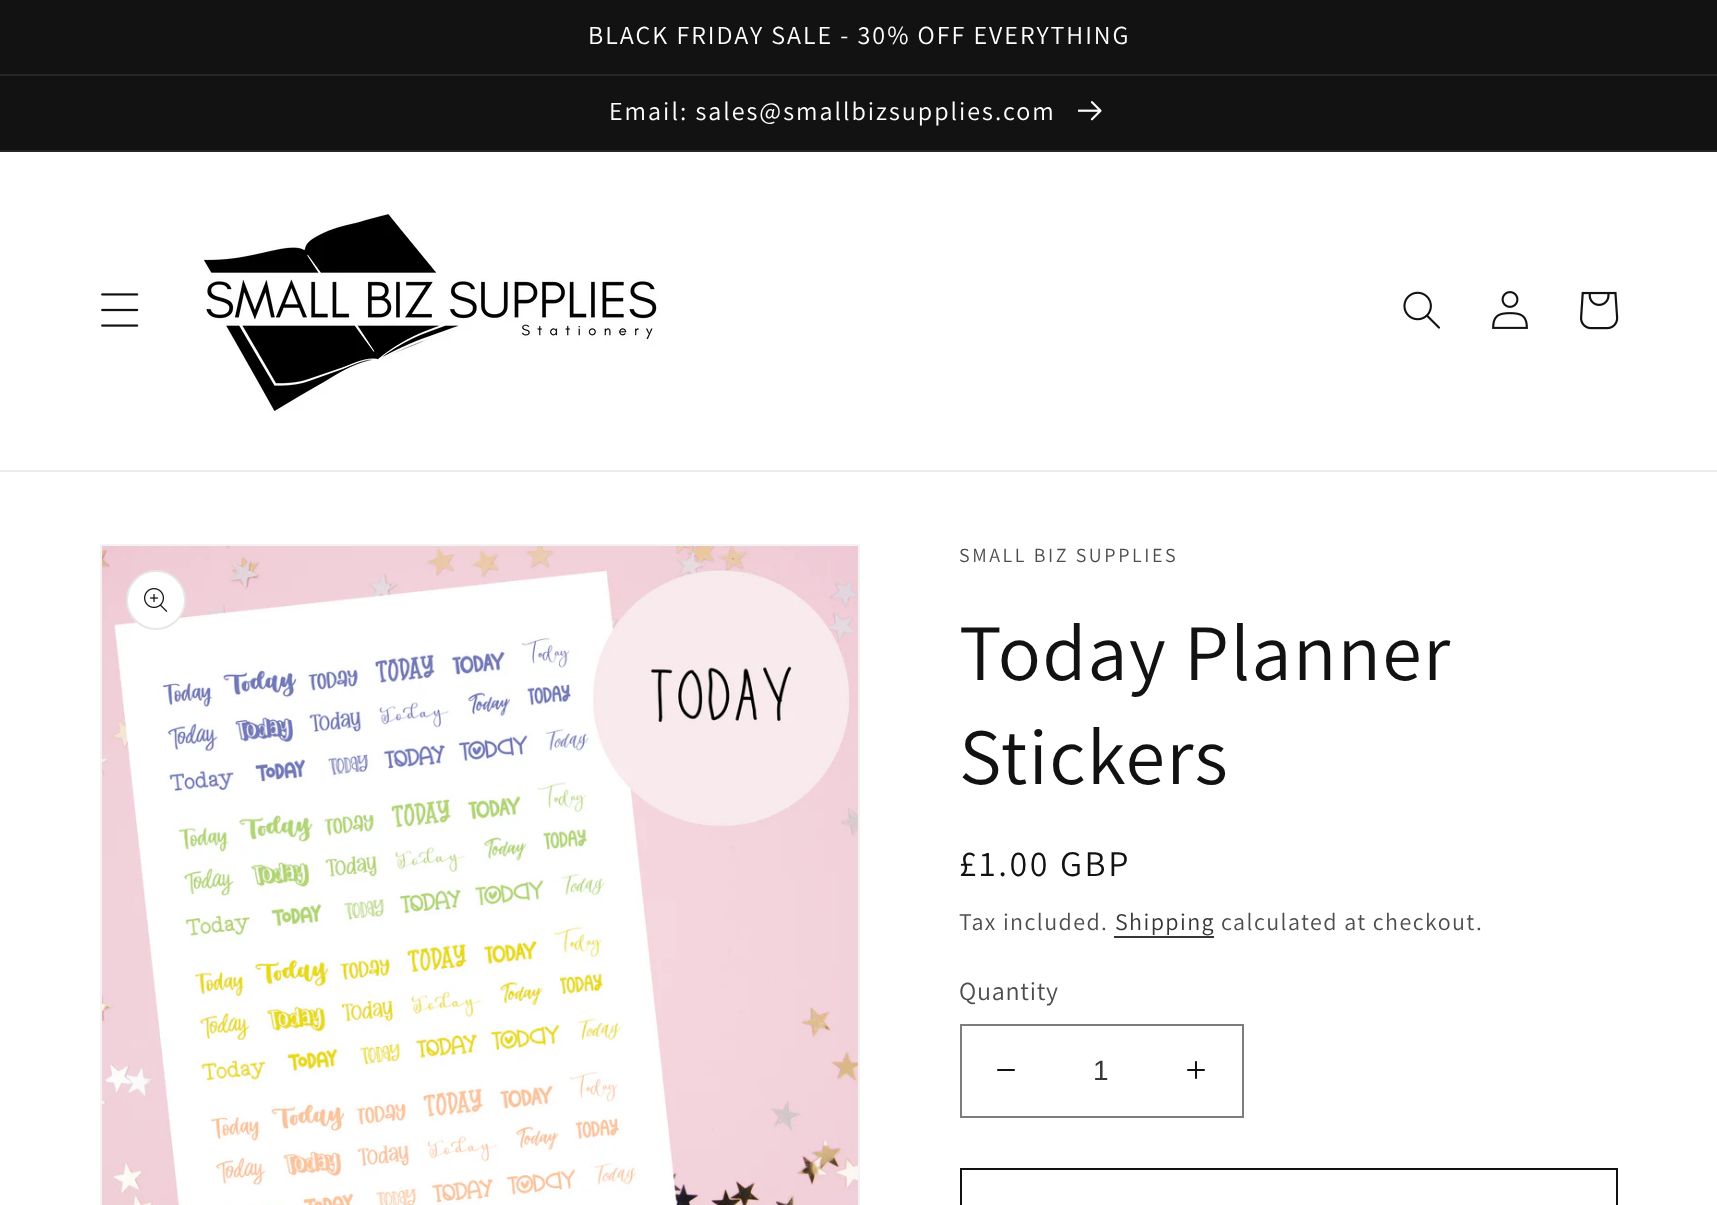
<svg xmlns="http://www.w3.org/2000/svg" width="1717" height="1205">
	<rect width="100%" height="100%" fill="#FFFFFF" />
	<rect x="0" y="0" width="1717" height="74" fill="#121212" />
	<rect x="0" y="74" width="1717" height="2" fill="#252525" />
	<text x="588" y="44" font-family="Assistant" font-size="26" letter-spacing="2" fill="#FFFFFF">BLACK FRIDAY SALE - 30% OFF EVERYTHING</text>
	<rect x="0" y="76" width="1717" height="74" fill="#121212" />
	<rect x="0" y="150" width="1717" height="2" fill="#252525" />
	<text x="609" y="120" font-family="Assistant" font-size="26" letter-spacing="2" fill="#FFFFFF">Email: sales@smallbizsupplies.com</text>
	<image x="1078" y="101" width="24" height="20" href="assets/img1.png" />
	<rect x="0" y="470" width="1717" height="2" fill="#ECECEC" />
	<image x="101" y="293" width="38" height="34" href="assets/img2.png" />
	<image x="204" y="214" width="456" height="199" href="assets/img3.png" />
	<image x="1403" y="291" width="37" height="38" href="assets/img4.png" />
	<image x="1492" y="291" width="36" height="38" href="assets/img5.png" />
	<image x="1580" y="291" width="39" height="39" href="assets/img6.png" />
	<rect x="101" y="545" width="758" height="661" fill="none" stroke="#F3F3F3" stroke-width="2" />
	<image x="102" y="546" width="756" height="659" href="assets/img7.png" />
	<circle cx="156" cy="600" r="30" fill="#FFFFFF" />
	<circle cx="156" cy="600" r="29" fill="none" stroke="#121212" stroke-opacity="0.1" stroke-width="2" />
	<image x="144" y="588" width="24" height="24" href="assets/img8.png" />
	<text x="959" y="562" font-family="Assistant" font-size="20" letter-spacing="2.6" fill="#4D4D4D">SMALL BIZ SUPPLIES</text>
	<g font-family="Assistant" font-size="80" letter-spacing="1.25" fill="#121212">
		<text x="959" y="680">Today Planner</text>
		<text x="959" y="784">Stickers</text>
	</g>
	<text x="959" y="876" font-family="Assistant" font-size="36" letter-spacing="2.6" fill="#121212">£1.00 GBP</text>
	<text x="959" y="930" font-family="Assistant" font-size="24" letter-spacing="1.4" fill="#4D4D4D">Tax included.</text>
	<text x="1115" y="930" font-family="Assistant" font-size="24" letter-spacing="1.4" fill="#363636">Shipping</text>
	<rect x="1114" y="936" width="100" height="2" fill="#363636" />
	<text x="1221" y="930" font-family="Assistant" font-size="24" letter-spacing="1.4" fill="#4D4D4D">calculated at checkout.</text>
	<text x="959" y="1000" font-family="Assistant" font-size="26" letter-spacing="0.75" fill="#4D4D4D">Quantity</text>
	<image x="997" y="1069" width="18" height="2" href="assets/img9.png" />
	<image x="1187" y="1061" width="18" height="18" href="assets/img10.png" />
	<rect x="961" y="1025" width="282" height="92" fill="none" stroke="#7D7D7D" stroke-width="2" />
	<text x="1093" y="1080" font-family="Liberation Sans" font-size="28" fill="#363636">1</text>
	<rect x="961" y="1169" width="656" height="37" fill="none" stroke="#121212" stroke-width="2" />
</svg>
